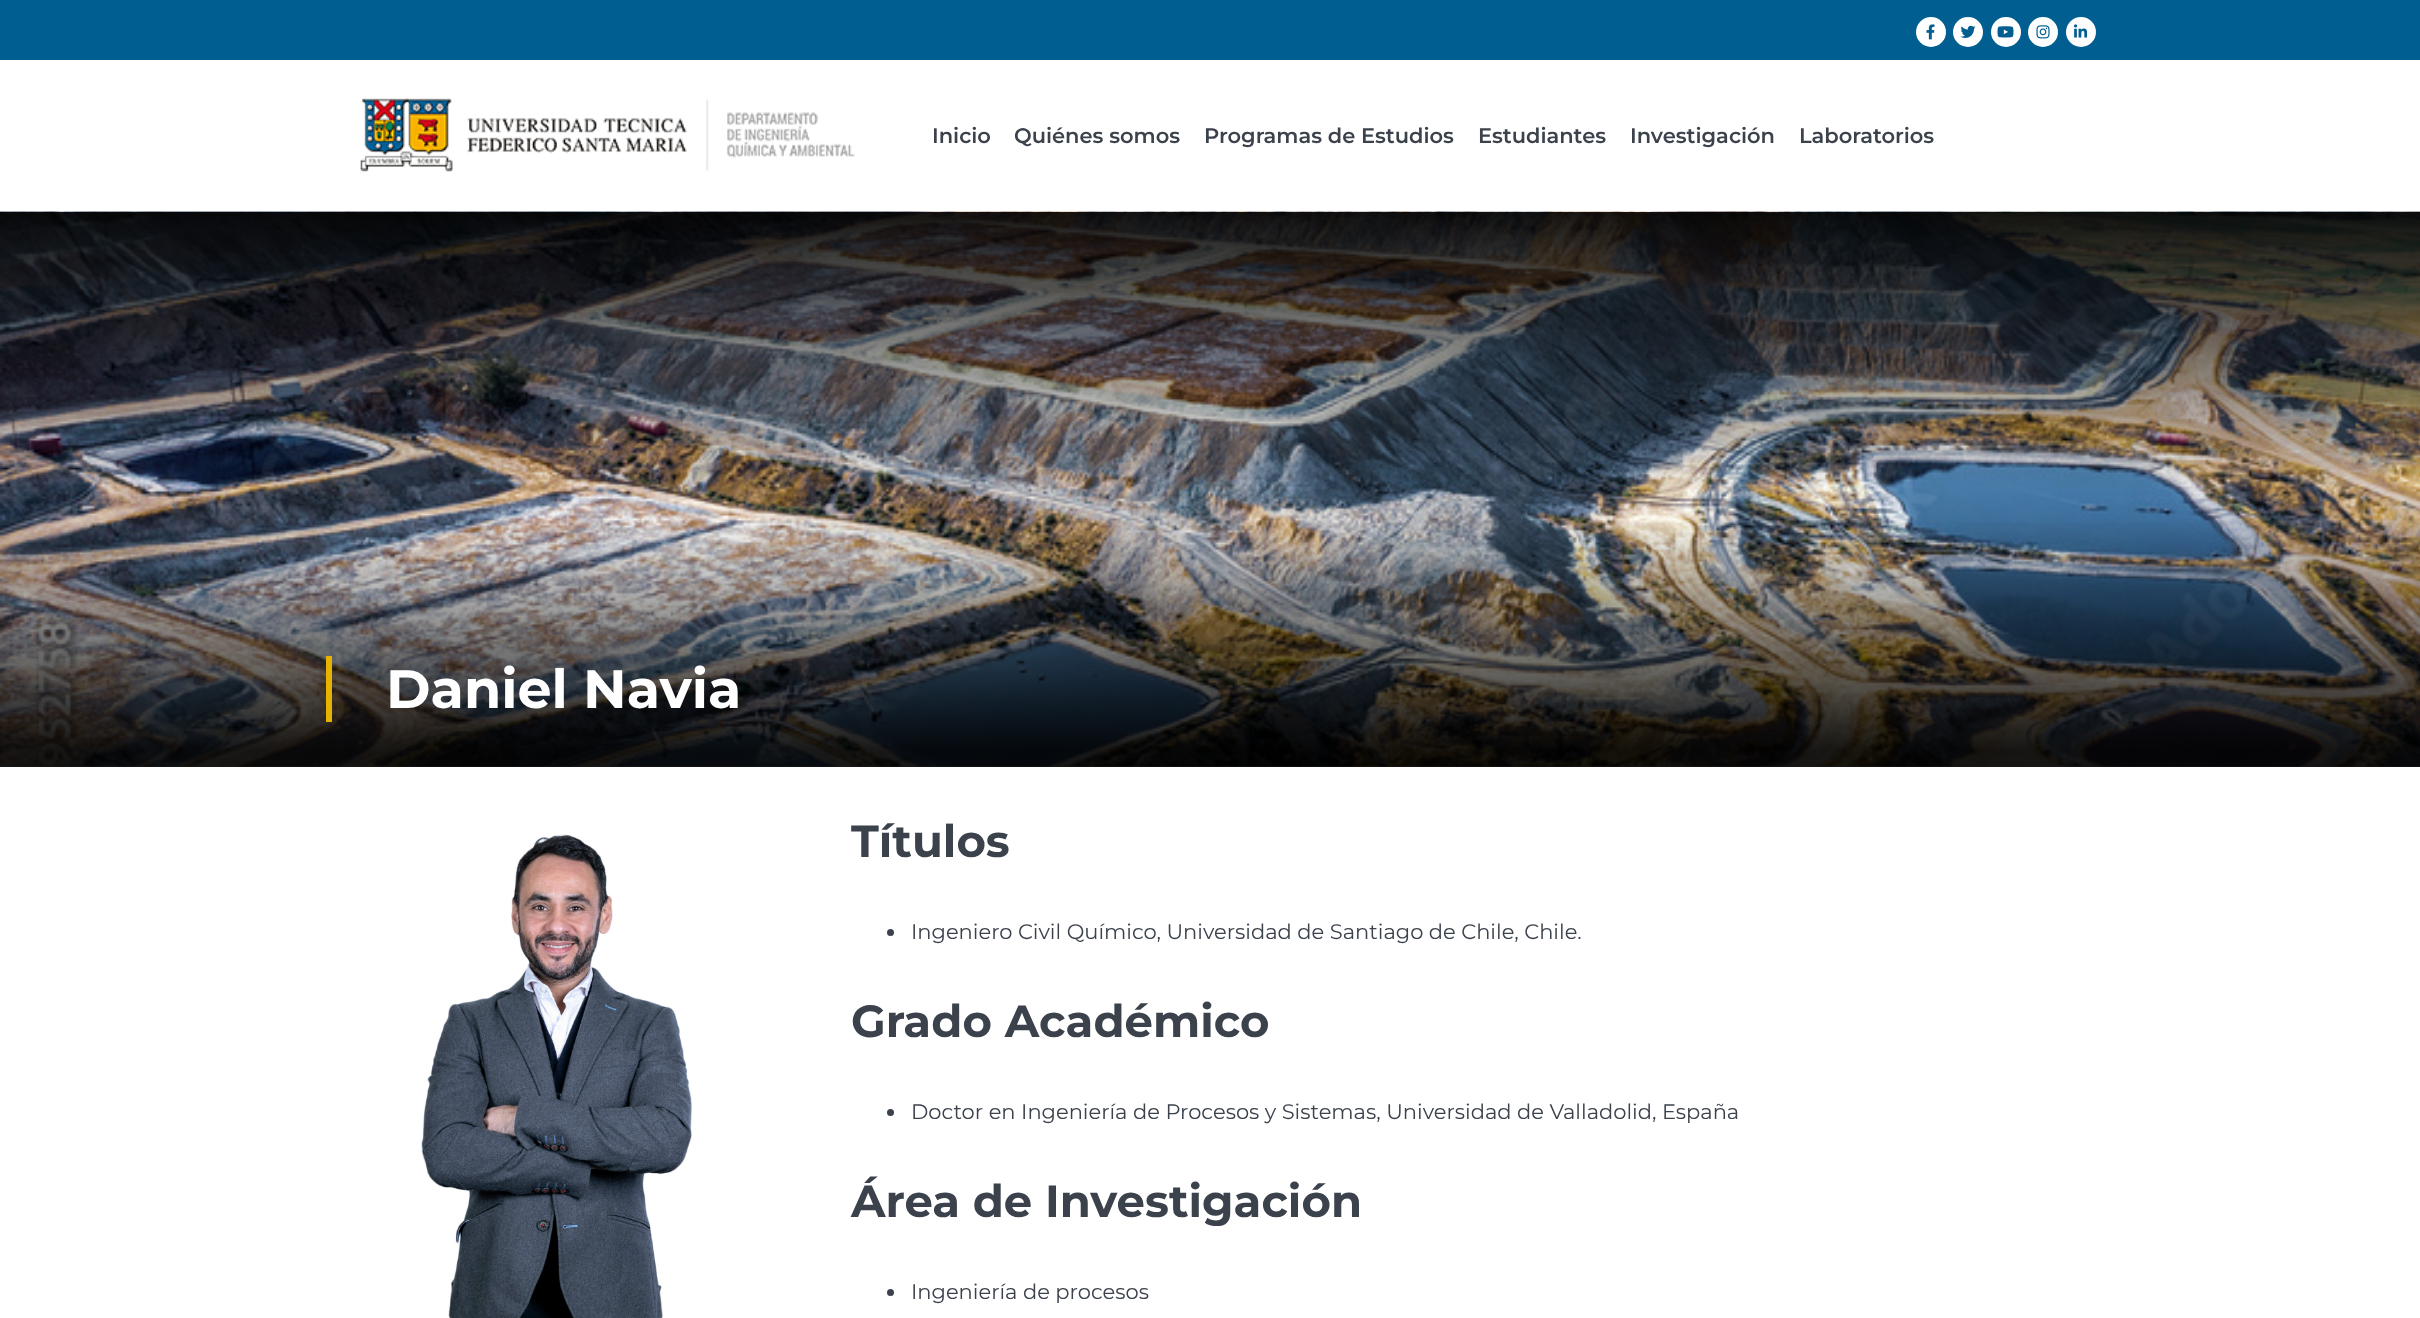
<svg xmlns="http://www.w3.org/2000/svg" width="2420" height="1318">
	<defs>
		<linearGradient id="g1" gradientUnits="userSpaceOnUse" x1="1211" y1="767" x2="1211" y2="489"><stop offset="0.06" stop-color="#000000" stop-opacity="0.9" /><stop offset="0.9" stop-color="#000000" stop-opacity="0" /></linearGradient>
	</defs>
	<rect width="100%" height="100%" fill="#FFFFFF" />
	<rect x="0" y="0" width="2420" height="60" fill="#005E90" />
	<circle cx="1931" cy="32" r="15" fill="#FFFFFF" />
	<image x="1926" y="24" width="9" height="16" href="assets/img1.png" />
	<circle cx="1968" cy="32" r="15" fill="#FFFFFF" />
	<image x="1960" y="25" width="16" height="13" href="assets/img2.png" />
	<circle cx="2006" cy="32" r="15" fill="#FFFFFF" />
	<image x="1997" y="26" width="17" height="12" href="assets/img3.png" />
	<circle cx="2043" cy="32" r="15" fill="#FFFFFF" />
	<image x="2036" y="25" width="14" height="14" href="assets/img4.png" />
	<circle cx="2081" cy="32" r="15" fill="#FFFFFF" />
	<image x="2074" y="24" width="14" height="14" href="assets/img5.png" />
	<image x="360" y="98" width="495" height="74" href="assets/img6.png" />
	<g font-family="Montserrat" font-size="21" font-weight="600" fill="#3B424C">
		<text x="932" y="143">Inicio</text>
		<text x="1014" y="143">Quiénes somos</text>
		<text x="1204" y="143">Programas de Estudios</text>
		<text x="1478" y="143">Estudiantes</text>
		<text x="1630" y="143">Investigación</text>
		<text x="1799" y="143">Laboratorios</text>
	</g>
	<image x="0" y="211" width="2420" height="556" href="assets/img7.png" />
	<rect x="0" y="522" width="2420" height="245" fill="url(#g1)" />
	<rect x="326" y="656" width="6" height="66" fill="#E5B300" />
	<text x="386" y="708" font-family="Montserrat" font-size="54" font-weight="700" fill="#FFFFFF">Daniel Navia</text>
	<image x="421" y="834" width="271" height="484" href="assets/img8.png" />
	<text x="851" y="857" font-family="Montserrat" font-size="45" font-weight="700" fill="#3B424C">Títulos</text>
	<circle cx="890.5" cy="932.5" r="3.5" fill="#3B424C" />
	<text x="911" y="939" font-family="Montserrat" font-size="21" fill="#3B424C">Ingeniero Civil Químico, Universidad de Santiago de Chile, Chile.</text>
	<text x="851" y="1037" font-family="Montserrat" font-size="45" font-weight="700" fill="#3B424C">Grado Académico</text>
	<circle cx="890.5" cy="1112.5" r="3.5" fill="#3B424C" />
	<text x="911" y="1119" font-family="Montserrat" font-size="21" fill="#3B424C">Doctor en Ingeniería de Procesos y Sistemas, Universidad de Valladolid, España</text>
	<text x="851" y="1217" font-family="Montserrat" font-size="45" font-weight="700" fill="#3B424C">Área de Investigación</text>
	<circle cx="890.5" cy="1292.5" r="3.5" fill="#3B424C" />
	<text x="911" y="1299" font-family="Montserrat" font-size="21" fill="#3B424C">Ingeniería de procesos</text>
</svg>
